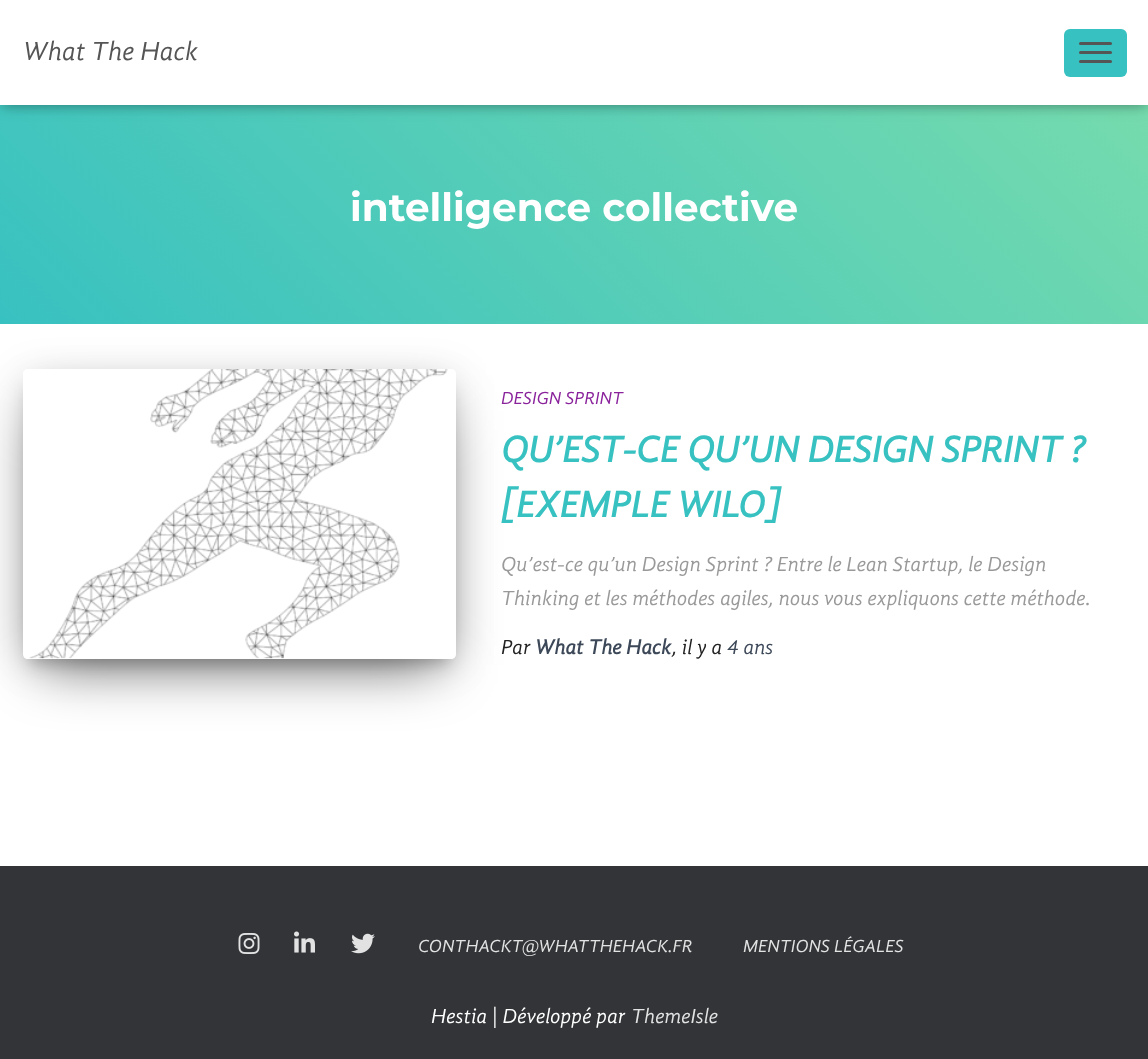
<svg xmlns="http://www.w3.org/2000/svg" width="1148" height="1059">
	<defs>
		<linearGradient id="g1" gradientUnits="userSpaceOnUse" x1="206" y1="530" x2="943" y2="-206"><stop offset="0" stop-color="#38C1C1" /><stop offset="1" stop-color="#7ADDAC" /></linearGradient>
		<clipPath id="clip1"><path d="M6 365H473V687H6ZM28 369H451C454 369 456 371 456 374V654C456 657 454 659 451 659H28C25 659 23 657 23 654V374C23 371 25 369 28 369Z" clip-rule="evenodd" /></clipPath>
		<clipPath id="clip2"><path d="M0 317H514V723H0ZM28 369H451C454 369 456 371 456 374V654C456 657 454 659 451 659H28C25 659 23 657 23 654V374C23 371 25 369 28 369Z" clip-rule="evenodd" /></clipPath>
		<clipPath id="clip3"><path d="M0 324H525V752H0ZM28 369H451C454 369 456 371 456 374V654C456 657 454 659 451 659H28C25 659 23 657 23 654V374C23 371 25 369 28 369Z" clip-rule="evenodd" /></clipPath>
	</defs>
	<rect width="100%" height="100%" fill="#323437" />
	<rect x="0" y="105" width="1148" height="219" fill="url(#g1)" />
	<rect x="3" y="9" width="1143" height="99" fill="#000000" fill-opacity="0.1" filter="blur(4px)" />
	<rect x="0" y="2" width="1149" height="105" fill="#000000" fill-opacity="0.12" filter="blur(7.5px)" />
	<rect x="9" y="11" width="1131" height="87" fill="#000000" fill-opacity="0.42" filter="blur(7.5px)" />
	<rect x="0" y="0" width="1148" height="105" fill="#FFFFFF" />
	<text x="23" y="60" font-family="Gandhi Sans" font-size="27" font-style="italic" fill="#555555">What The Hack</text>
	<rect x="1064" y="29" width="63" height="48" rx="6" fill="#38C1C1" />
	<rect x="1079" y="42" width="33" height="3" rx="1.5" fill="#555555" />
	<rect x="1079" y="51" width="33" height="3" rx="1.5" fill="#555555" />
	<rect x="1079" y="60" width="33" height="3" rx="1.5" fill="#555555" />
	<text x="350" y="221" font-family="Montserrat" font-size="39" font-weight="700" fill="#FFFFFF">intelligence collective</text>
	<rect x="0" y="324" width="1148" height="542" fill="#FFFFFF" />
	<g clip-path="url(#clip1)">
		<rect x="30" y="389" width="419" height="274" fill="#000000" fill-opacity="0.2" filter="blur(7.5px)" />
	</g>
	<g clip-path="url(#clip2)">
		<rect x="23" y="375" width="433" height="290" rx="5" fill="#000000" fill-opacity="0.12" filter="blur(19px)" />
	</g>
	<g clip-path="url(#clip3)">
		<rect x="41" y="411" width="397" height="254" fill="#000000" fill-opacity="0.56" filter="blur(28.5px)" />
	</g>
	<image x="29" y="369" width="419" height="290" href="assets/img1.png" />
	<text x="501" y="404" font-family="Gandhi Sans" font-size="18" font-style="italic" fill="#89229B">DESIGN SPRINT</text>
	<g font-family="Gandhi Sans" font-size="37.5" font-weight="700" font-style="italic" fill="#38C1C1">
		<text x="501" y="462">QU’EST-CE QU’UN DESIGN SPRINT ?</text>
		<text x="501" y="517">[EXEMPLE WILO]</text>
	</g>
	<g font-family="Gandhi Sans" font-size="21" font-style="italic" fill="#999999">
		<text x="501" y="571">Qu’est-ce qu’un Design Sprint ? Entre le Lean Startup, le Design</text>
		<text x="501" y="605">Thinking et les méthodes agiles, nous vous expliquons cette méthode.</text>
	</g>
	<text x="501" y="654" font-family="Gandhi Sans" font-size="21" font-style="italic" fill="#212121">Par</text>
	<text x="535" y="654" font-family="Gandhi Sans" font-size="21" font-weight="700" font-style="italic" fill="#3C4858">What The Hack</text>
	<text x="672" y="654" font-family="Gandhi Sans" font-size="21" font-style="italic" fill="#212121">, il y a</text>
	<text x="727" y="654" font-family="Gandhi Sans" font-size="21" font-style="italic" fill="#3C4858">4 ans</text>
	<image x="238" y="933" width="22" height="21" href="assets/img2.png" />
	<image x="294" y="931" width="21" height="22" href="assets/img3.png" />
	<image x="351" y="933" width="24" height="21" href="assets/img4.png" />
	<g font-family="Gandhi Sans" font-size="18" font-style="italic" fill="#E2E3E3">
		<text x="418" y="952">CONTHACKT@WHATTHEHACK.FR</text>
		<text x="743" y="952">MENTIONS LÉGALES</text>
	</g>
	<text x="431" y="1023" font-family="Gandhi Sans" font-size="21" font-style="italic" fill="#FFFFFF">Hestia | Développé par</text>
	<text x="631" y="1023" font-family="Gandhi Sans" font-size="21" font-style="italic" fill="#E2E3E3">ThemeIsle</text>
</svg>
